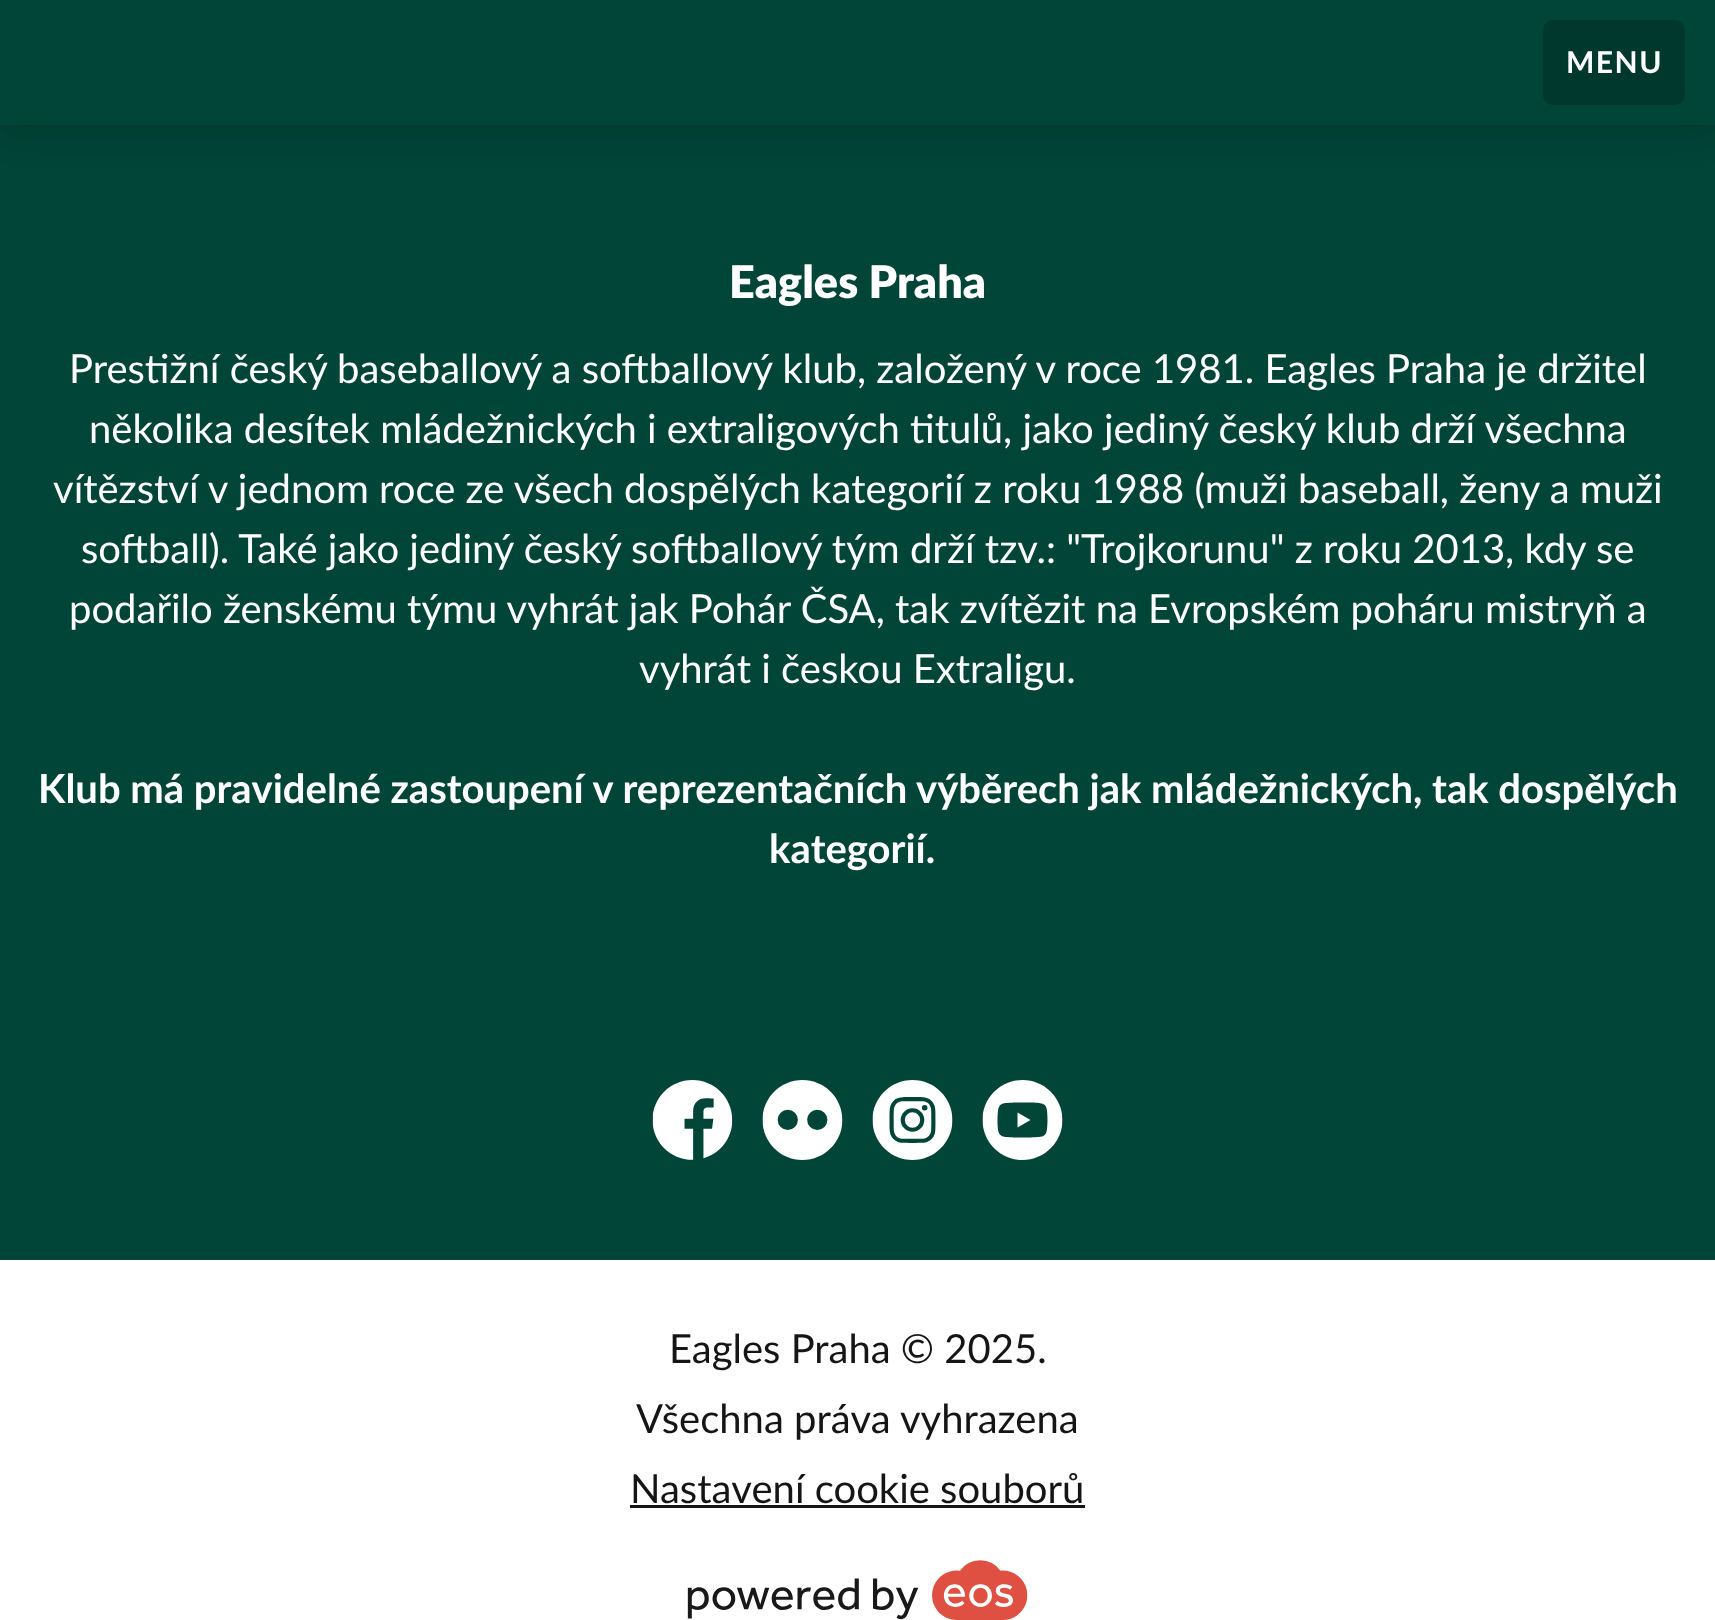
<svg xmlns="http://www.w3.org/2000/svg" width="1715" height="1620">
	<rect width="100%" height="100%" fill="#004538" />
	<rect x="0" y="0" width="1715" height="125" fill="#000000" fill-opacity="0.25" filter="blur(20px)" />
	<rect x="0" y="0" width="1715" height="125" fill="#004538" />
	<rect x="1543" y="20" width="142" height="85" rx="10" fill="#00382E" />
	<text x="1566" y="73" font-family="Lato" font-size="30" font-weight="700" letter-spacing="1.5" fill="#FFFFFF">MENU</text>
	<text x="729" y="298" font-family="Lato" font-size="45" font-weight="900" fill="#FFFFFF">Eagles Praha</text>
	<g font-family="Lato" font-size="40" fill="#FFFFFF">
		<text x="69" y="383">Prestižní český baseballový a softballový klub, založený v roce 1981. Eagles Praha je držitel</text>
		<text x="89" y="443">několika desítek mládežnických i extraligových titulů, jako jediný český klub drží všechna</text>
		<text x="53" y="503">vítězství v jednom roce ze všech dospělých kategorií z roku 1988 (muži baseball, ženy a muži</text>
		<text x="81" y="563">softball). Také jako jediný český softballový tým drží tzv.: "Trojkorunu" z roku 2013, kdy se</text>
		<text x="69" y="623">podařilo ženskému týmu vyhrát jak Pohár ČSA, tak zvítězit na Evropském poháru mistryň a</text>
		<text x="639" y="683">vyhrát i českou Extraligu.</text>
	</g>
	<g font-family="Lato" font-size="40" font-weight="700" fill="#FFFFFF">
		<text x="38" y="803">Klub má pravidelné zastoupení v reprezentačních výběrech jak mládežnických, tak dospělých</text>
		<text x="769" y="863">kategorií.</text>
	</g>
	<image x="652" y="1080" width="81" height="80" href="assets/img1.png" />
	<image x="762" y="1080" width="81" height="80" href="assets/img2.png" />
	<image x="872" y="1080" width="81" height="80" href="assets/img3.png" />
	<image x="982" y="1080" width="81" height="80" href="assets/img4.png" />
	<rect x="0" y="1260" width="1715" height="360" fill="#FFFFFF" />
	<g font-family="Lato" font-size="40" fill="#151515">
		<text x="669" y="1363">Eagles Praha © 2025.</text>
		<text x="636" y="1433">Všechna práva vyhrazena</text>
		<text x="630" y="1503">Nastavení cookie souborů</text>
	</g>
	<rect x="630" y="1505" width="455" height="3" fill="#151515" />
	<image x="687" y="1560" width="341" height="60" href="assets/img5.png" />
</svg>
